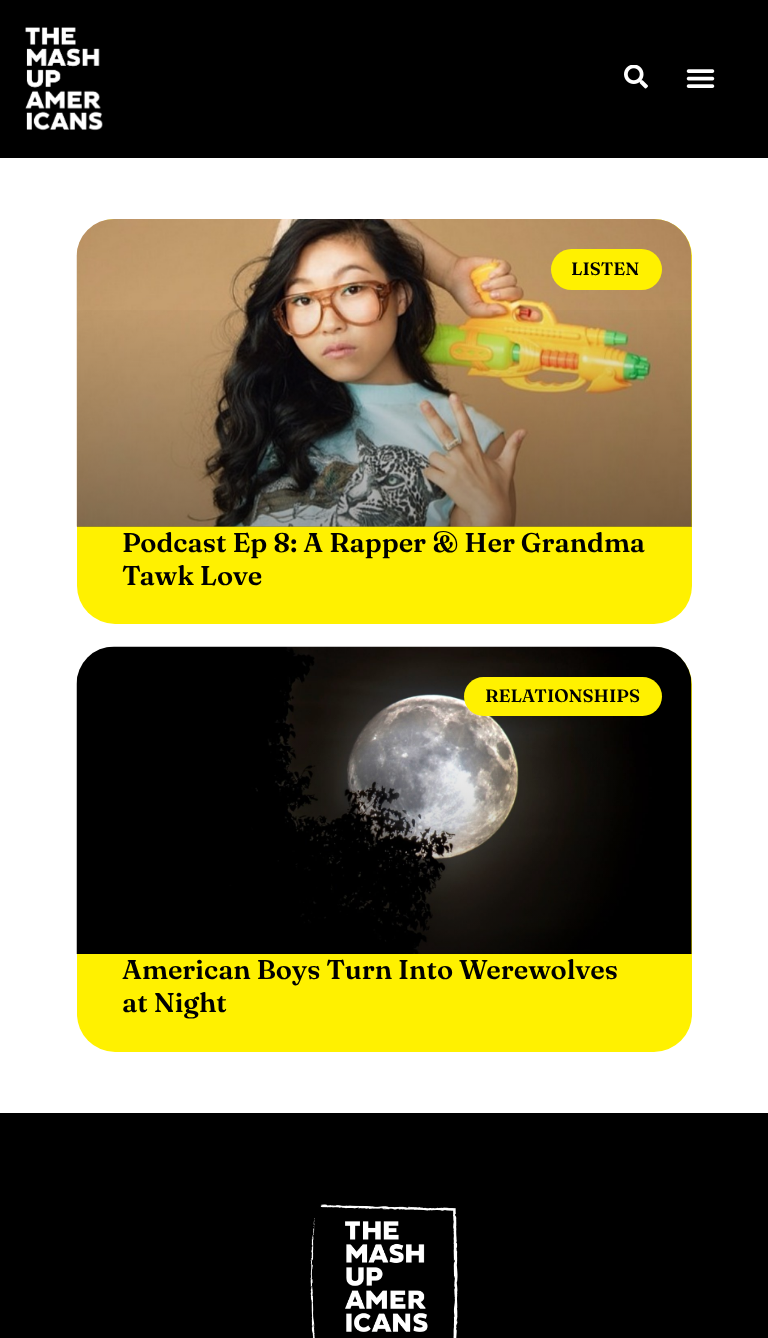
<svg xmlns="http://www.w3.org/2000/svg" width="768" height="1338">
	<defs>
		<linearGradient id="g1" gradientUnits="userSpaceOnUse" x1="384" y1="527" x2="384" y2="219"><stop offset="0" stop-color="#000000" stop-opacity="0.35" /><stop offset="0.75" stop-color="#000000" stop-opacity="0" /></linearGradient>
		<linearGradient id="g2" gradientUnits="userSpaceOnUse" x1="384" y1="954" x2="384" y2="647"><stop offset="0" stop-color="#000000" stop-opacity="0.35" /><stop offset="0.75" stop-color="#000000" stop-opacity="0" /></linearGradient>
	</defs>
	<rect width="100%" height="100%" fill="#FFFFFF" />
	<rect x="0" y="0" width="768" height="158" fill="#000000" />
	<image x="25" y="27" width="78" height="104" href="assets/img1.png" />
	<image x="624" y="65" width="24" height="24" href="assets/img2.png" />
	<image x="686" y="69" width="29" height="19" href="assets/img3.png" />
	<rect x="77" y="219" width="615" height="405" rx="38" fill="#FFF100" />
	<image x="76" y="219" width="616" height="308" href="assets/img4.png" />
	<rect x="77" y="310" width="615" height="217" fill="url(#g1)" />
	<rect x="551" y="249" width="111" height="41" rx="20.5" fill="#FFF100" />
	<text x="571" y="275" font-family="Fraunces" font-size="18" font-weight="600" fill="#000000">LISTEN</text>
	<g font-family="Fraunces" font-size="27" font-weight="600" fill="#000000">
		<text x="122" y="552">Podcast Ep 8: A Rapper &amp; Her Grandma</text>
		<text x="122" y="585">Tawk Love</text>
	</g>
	<rect x="77" y="647" width="615" height="405" rx="38" fill="#FFF100" />
	<image x="76" y="646" width="616" height="308" href="assets/img5.png" />
	<rect x="278" y="738" width="414" height="216" fill="url(#g2)" />
	<rect x="464" y="677" width="198" height="39" rx="19.5" fill="#FFF100" />
	<text x="485" y="702" font-family="Fraunces" font-size="18" font-weight="600" fill="#000000">RELATIONSHIPS</text>
	<g font-family="Fraunces" font-size="27" font-weight="600" fill="#000000">
		<text x="122" y="979">American Boys Turn Into Werewolves</text>
		<text x="122" y="1012">at Night</text>
	</g>
	<rect x="0" y="1113" width="768" height="225" fill="#000000" />
	<image x="310" y="1204" width="148" height="134" href="assets/img6.png" />
</svg>
